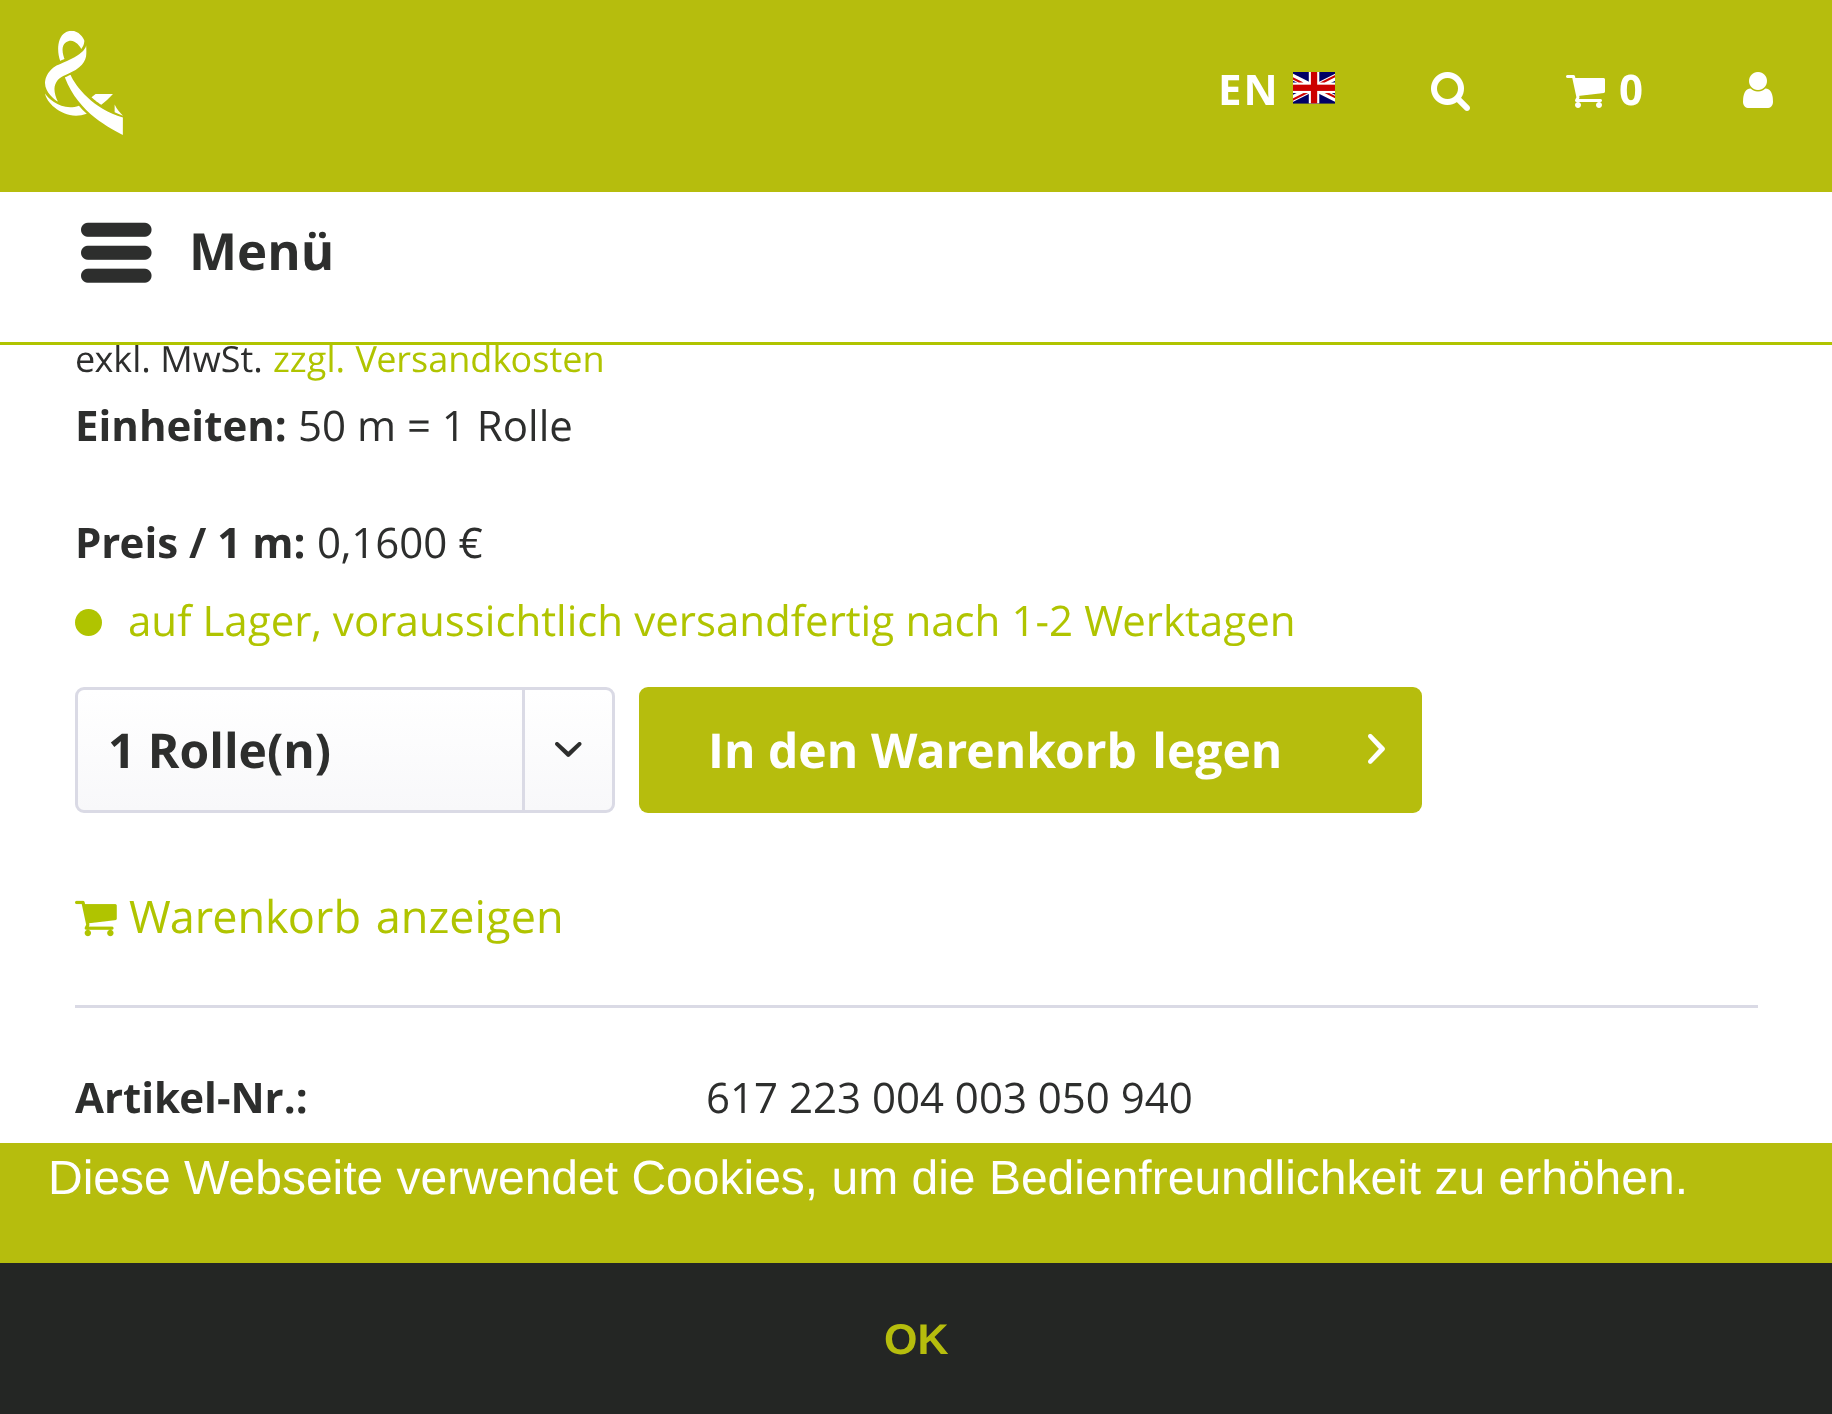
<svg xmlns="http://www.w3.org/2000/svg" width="1832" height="1414">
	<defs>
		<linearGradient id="g1" gradientUnits="userSpaceOnUse" x1="345" y1="690" x2="345" y2="810"><stop offset="0" stop-color="#FFFFFF" /><stop offset="1" stop-color="#F8F8FA" /></linearGradient>
	</defs>
	<rect width="100%" height="100%" fill="#FFFFFF" />
	<text x="75" y="372" font-family="Open Sans" font-size="36" fill="#2D2E2D">exkl. MwSt.</text>
	<rect x="0" y="342" width="1832" height="3" fill="#B0C400" />
	<rect x="0" y="0" width="1832" height="192" fill="#B6BD0D" />
	<image x="45" y="30" width="78" height="105" href="assets/img1.png" />
	<text x="1218" y="105" font-family="Open Sans" font-size="42" font-weight="700" letter-spacing="2" fill="#FFFFFF">EN</text>
	<image x="1293" y="72" width="42" height="32" href="assets/img2.png" />
	<image x="1431" y="72" width="39" height="39" href="assets/img3.png" />
	<image x="1566" y="75" width="39" height="33" href="assets/img4.png" />
	<text x="1619" y="105" font-family="Open Sans" font-size="42" font-weight="700" letter-spacing="2" fill="#FFFFFF">0</text>
	<image x="1743" y="72" width="30" height="36" href="assets/img5.png" />
	<image x="81" y="222" width="71" height="61" href="assets/img6.png" />
	<text x="189" y="270" font-family="Open Sans" font-size="51" font-weight="700" fill="#2D2E2D">Menü</text>
	<text x="273" y="372" word-spacing="1" font-family="Open Sans" font-size="36" fill="#B0C400">zzgl. Versandkosten</text>
	<text x="75" y="441" font-family="Open Sans" font-size="42" font-weight="700" fill="#2D2E2D">Einheiten:</text>
	<text x="298" y="441" font-family="Open Sans" font-size="42" fill="#2D2E2D">50 m = 1 Rolle</text>
	<text x="75" y="558" font-family="Open Sans" font-size="42" font-weight="700" fill="#2D2E2D">Preis / 1 m:</text>
	<text x="317" y="558" font-family="Open Sans" font-size="42" fill="#2D2E2D">0,1600 €</text>
	<circle cx="88.5" cy="622.5" r="13.5" fill="#B0C400" />
	<text x="128" y="636" word-spacing="0.25" font-family="Open Sans" font-size="42" fill="#B0C400">auf Lager, voraussichtlich versandfertig nach 1-2 Werktagen</text>
	<rect x="78" y="690" width="534" height="120" rx="6" fill="url(#g1)" />
	<rect x="76.5" y="688.5" width="537" height="123" rx="7.5" fill="none" stroke="#DADAE5" stroke-width="3" />
	<text x="108" y="768" font-family="Open Sans" font-size="48" font-weight="700" fill="#2D2E2D">1 Rolle(n)</text>
	<rect x="522" y="690" width="3" height="120" fill="#DADAE5" />
	<image x="555" y="742" width="27" height="15" href="assets/img7.png" />
	<rect x="639" y="687" width="783" height="126" rx="9" fill="#B6BD0D" />
	<g font-family="Open Sans" font-size="48" font-weight="700" fill="#FFFFFF">
		<text x="708" y="768">In den</text>
		<text x="871" y="768" word-spacing="3">Warenkorb legen</text>
	</g>
	<image x="1368" y="733" width="17" height="31" href="assets/img8.png" />
	<image x="75" y="900" width="42" height="37" href="assets/img9.png" />
	<text x="129" y="933" word-spacing="3" font-family="Open Sans" font-size="45" fill="#B0C400">Warenkorb anzeigen</text>
	<rect x="75" y="1005" width="1683" height="3" fill="#DADAE5" />
	<text x="75" y="1113" font-family="Open Sans" font-size="42" font-weight="700" fill="#2D2E2D">Artikel-Nr.:</text>
	<text x="706" y="1113" font-family="Open Sans" font-size="42" fill="#2D2E2D">617 223 004 003 050 940</text>
	<rect x="0" y="1143" width="1832" height="120" fill="#B6BD0D" />
	<text x="48" y="1194" font-family="Liberation Sans" font-size="48" fill="#FFFFFF">Diese Webseite verwendet Cookies, um die Bedienfreundlichkeit zu erhöhen.</text>
	<rect x="0" y="1263" width="1832" height="151" fill="#242624" />
	<text x="884" y="1354" font-family="Liberation Sans" font-size="43" font-weight="700" fill="#B6BD0D">OK</text>
</svg>
